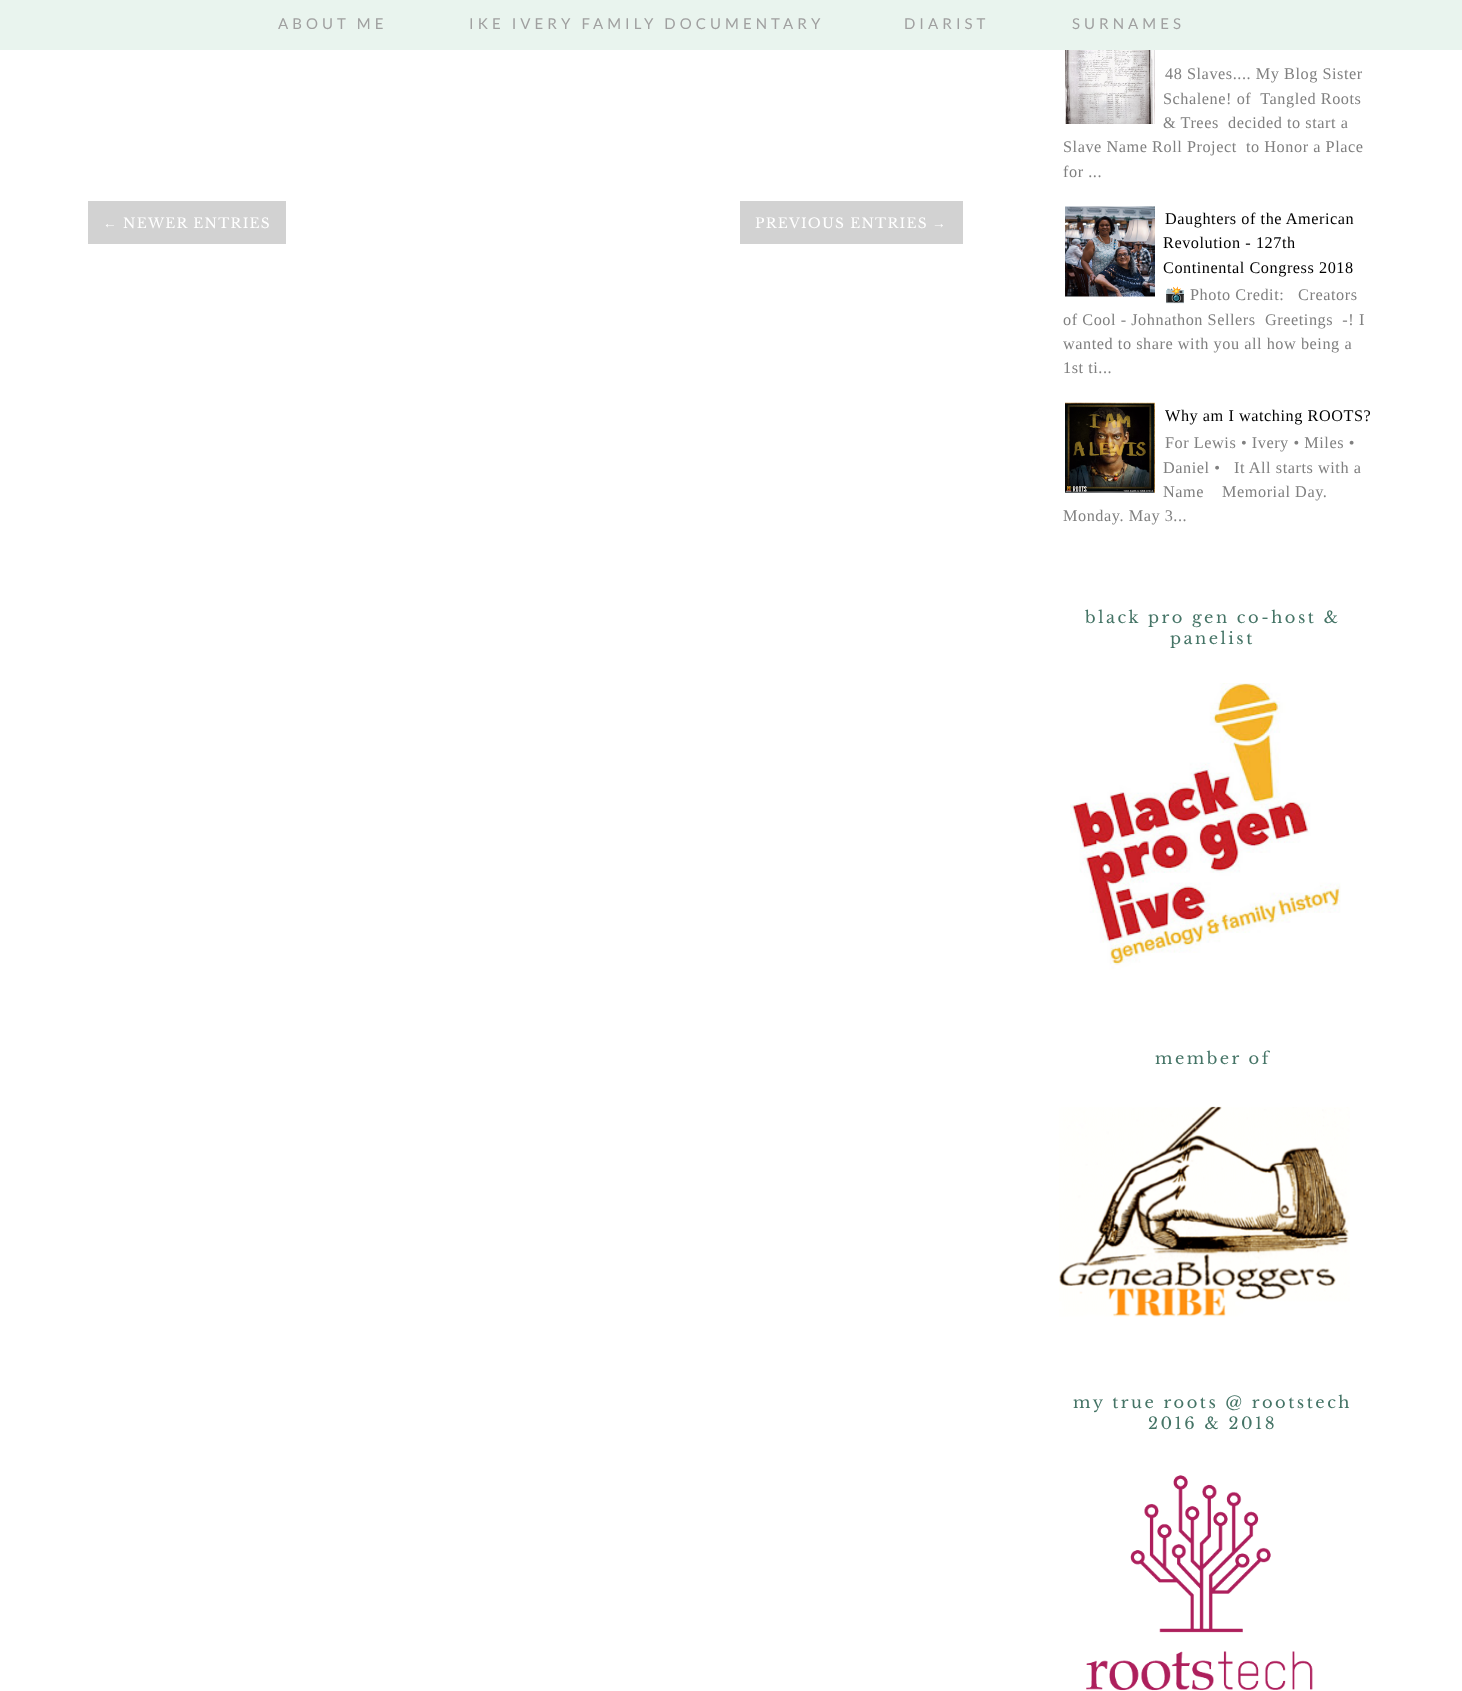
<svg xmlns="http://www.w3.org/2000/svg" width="1462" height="1691">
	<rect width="100%" height="100%" fill="#FFFFFF" />
	<rect x="0" y="0" width="1462" height="50" fill="#E9F4EE" />
	<g font-family="Lato" font-size="15" letter-spacing="4.05" fill="#A0A0A0">
		<text x="278" y="29">ABOUT ME</text>
		<text x="469" y="29">IKE IVERY FAMILY DOCUMENTARY</text>
		<text x="904" y="29">DIARIST</text>
		<text x="1072" y="29">SURNAMES</text>
	</g>
	<rect x="88" y="201" width="198" height="43" fill="#D2D2D2" />
	<text x="103" y="228" font-family="Liberation Serif" font-size="13.75" letter-spacing="1.25" fill="#FFFFFF">←</text>
	<text x="123" y="228" font-family="Libre Baskerville" font-size="13.75" letter-spacing="1.25" fill="#FFFFFF">NEWER ENTRIES</text>
	<rect x="740" y="201" width="223" height="43" fill="#D2D2D2" />
	<text x="755" y="228" font-family="Libre Baskerville" font-size="13.75" letter-spacing="1.25" fill="#FFFFFF">PREVIOUS ENTRIES</text>
	<text x="932" y="228" font-family="Liberation Serif" font-size="13.75" letter-spacing="1.25" fill="#FFFFFF">→</text>
	<image x="1065" y="50" width="90" height="74" href="assets/img1.png" />
	<g font-family="Liberation Serif" font-size="16.25" letter-spacing="0.55" fill="#808080">
		<text x="1165" y="79">48 Slaves.... My Blog Sister</text>
		<text x="1163" y="104" xml:space="preserve">Schalene! of  Tangled Roots</text>
		<text x="1163" y="128" xml:space="preserve">&amp; Trees  decided to start a</text>
		<text x="1063" y="152" xml:space="preserve">Slave Name Roll Project  to Honor a Place</text>
		<text x="1063" y="177">for ...</text>
	</g>
	<image x="1065" y="206" width="90" height="91" href="assets/img2.png" />
	<g font-family="Liberation Serif" font-size="16.25" letter-spacing="0.55" fill="#000000">
		<text x="1165" y="224">Daughters of the American</text>
		<text x="1163" y="248">Revolution - 127th</text>
		<text x="1163" y="273">Continental Congress 2018</text>
	</g>
	<text x="1165" y="300" font-family="Noto Color Emoji" font-size="16.25" letter-spacing="0.55" fill="#808080">📸</text>
	<g font-family="Liberation Serif" font-size="16.25" letter-spacing="0.55" fill="#808080">
		<text x="1190" y="300" xml:space="preserve">Photo Credit:   Creators</text>
		<text x="1063" y="325">of Cool - Johnathon Sellers</text>
		<text x="1265" y="325" xml:space="preserve">Greetings  -! I</text>
		<text x="1063" y="349">wanted to share with you all how being a</text>
		<text x="1063" y="373">1st ti...</text>
	</g>
	<image x="1065" y="402" width="90" height="91" href="assets/img3.png" />
	<text x="1165" y="421" font-family="Liberation Serif" font-size="16.25" letter-spacing="0.55" fill="#000000">Why am I watching ROOTS?</text>
	<g font-family="Liberation Serif" font-size="16.25" letter-spacing="0.55" fill="#808080">
		<text x="1165" y="448">For Lewis • Ivery • Miles •</text>
		<text x="1163" y="473">Daniel •</text>
		<text x="1234" y="473">It All starts with a</text>
		<text x="1163" y="497">Name</text>
		<text x="1222" y="497">Memorial Day.</text>
		<text x="1063" y="521">Monday. May 3...</text>
	</g>
	<g font-family="Libre Baskerville" font-size="16.25" letter-spacing="2.5" fill="#457466">
		<text x="1085" y="623">black pro gen co-host &amp;</text>
		<text x="1170" y="644">panelist</text>
	</g>
	<image x="1070" y="683" width="271" height="287" href="assets/img4.png" />
	<text x="1155" y="1064" font-family="Libre Baskerville" font-size="16.25" letter-spacing="2.5" fill="#457466">member of</text>
	<image x="1059" y="1106" width="291" height="211" href="assets/img5.png" />
	<g font-family="Libre Baskerville" font-size="16.25" letter-spacing="2.5" fill="#457466">
		<text x="1073" y="1408">my true roots @ rootstech</text>
		<text x="1148" y="1429">2016 &amp; 2018</text>
	</g>
	<image x="1086" y="1475" width="227" height="216" href="assets/img6.png" />
</svg>
